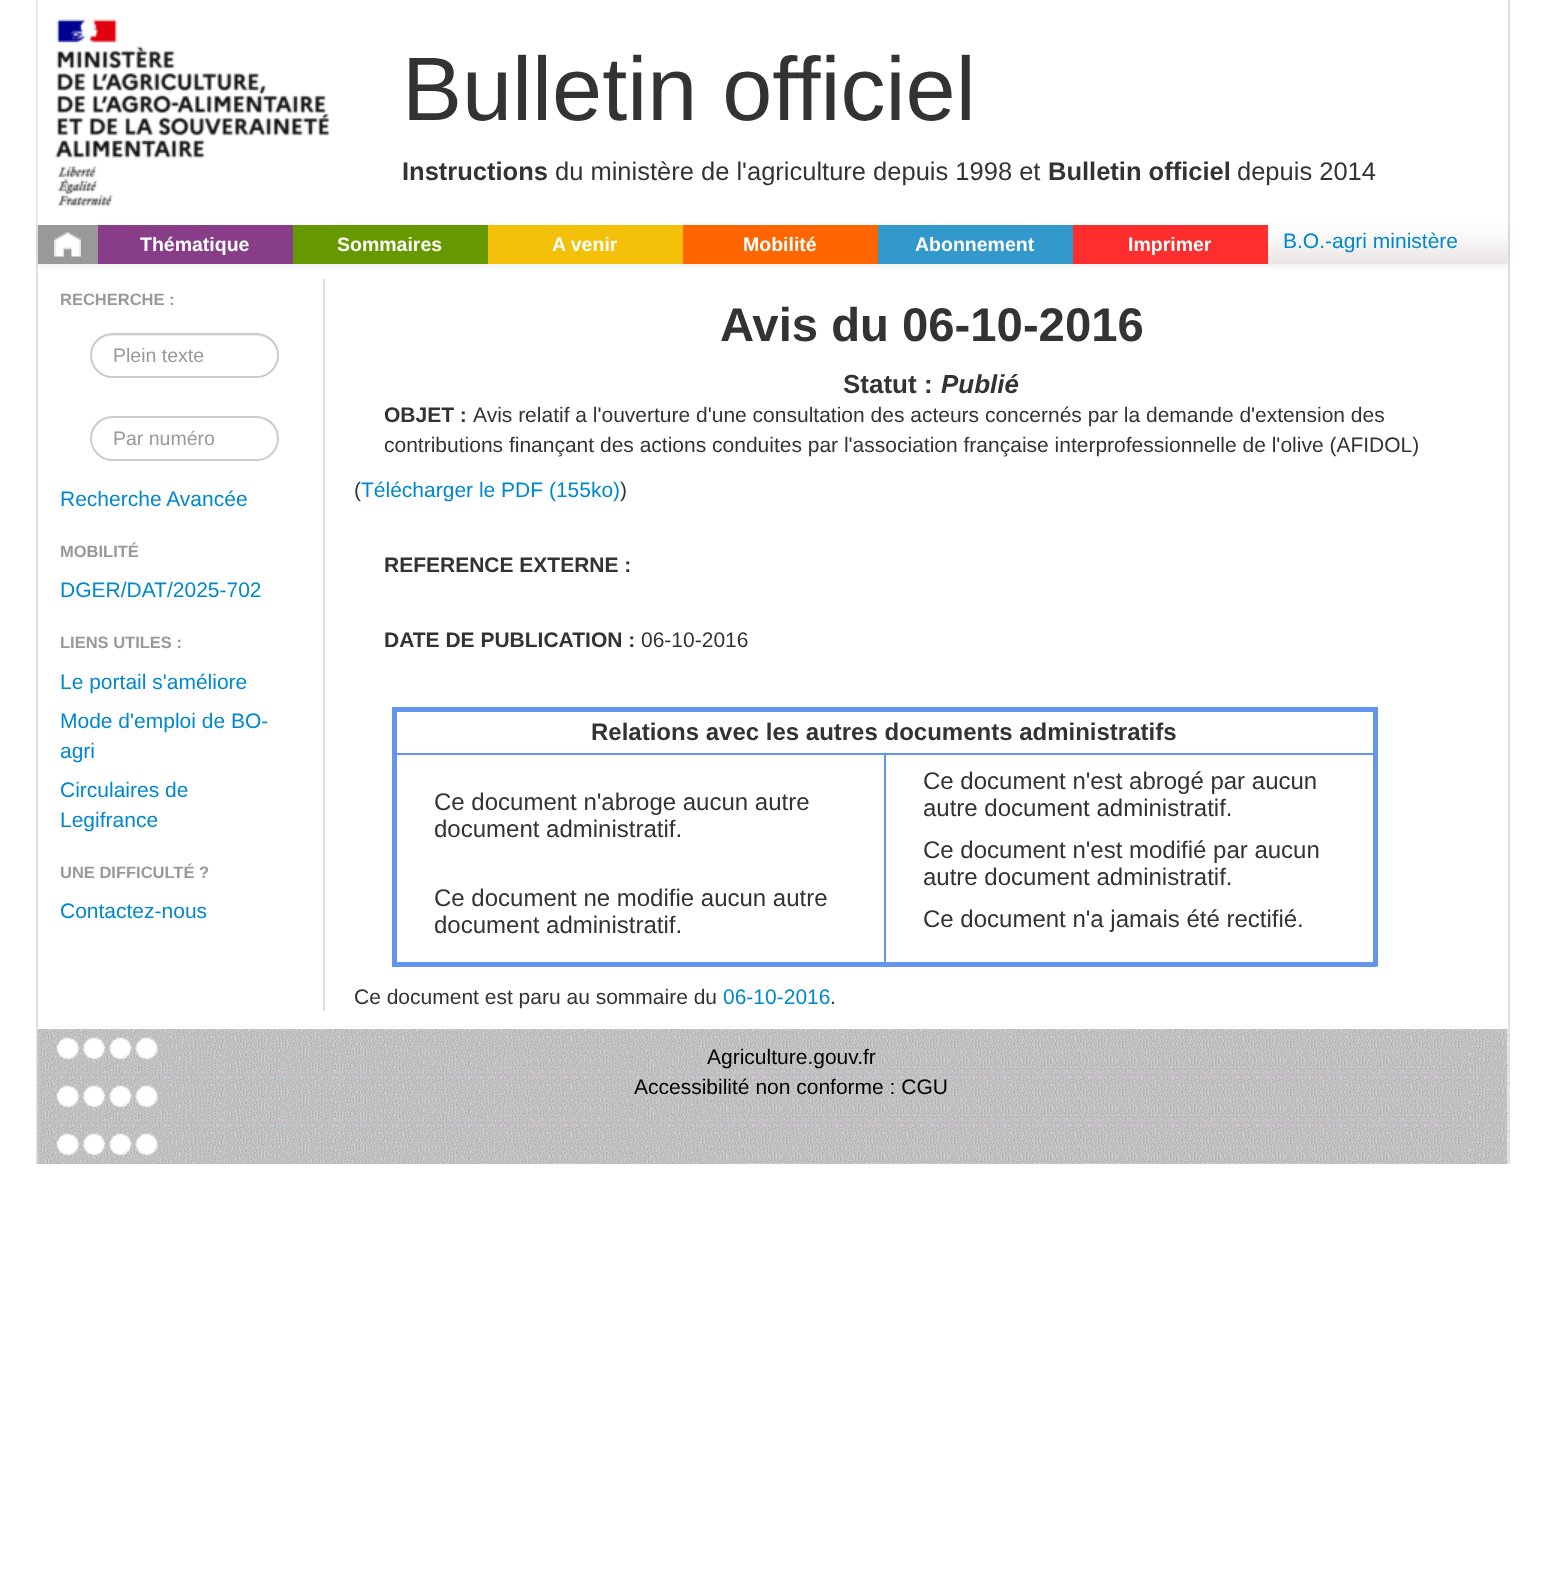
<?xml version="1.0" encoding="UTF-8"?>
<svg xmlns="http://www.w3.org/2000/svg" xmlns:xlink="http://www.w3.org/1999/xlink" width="1545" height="1569">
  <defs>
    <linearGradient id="g1" gradientUnits="userSpaceOnUse" x1="773" y1="225" x2="773" y2="264"><stop offset="0" stop-color="#ffffff" /><stop offset="1" stop-color="#eae5e5" /></linearGradient>
  </defs>
  <rect width="100%" height="100%" fill="#ffffff" />
  <rect x="1508" width="2" height="1164" fill="#e0e0e0" />
  <rect x="36" width="2" height="1164" fill="#e0e0e0" />
  <rect x="38" y="227" width="1470" height="39" fill="#000000" fill-opacity="0.07" filter="blur(3px)" />
  <image x="37" y="0" width="293" height="225" xlink:href="image1.png" />
  <rect x="1268" y="225" width="240" height="39" fill="url(#g1)" />
  <rect x="38" y="225" width="60" height="39" fill="#999999" />
  <image x="54" y="232" width="27" height="25" xlink:href="image2.png" />
  <rect x="98" y="225" width="195" height="39" fill="#873d87" />
  <rect x="293" y="225" width="195" height="39" fill="#669900" />
  <rect x="488" y="225" width="195" height="39" fill="#f3c10a" />
  <rect x="683" y="225" width="195" height="39" fill="#ff6600" />
  <rect x="878" y="225" width="195" height="39" fill="#3399cc" />
  <rect x="1073" y="225" width="195" height="39" fill="#fe2e2e" />
  <path d="M 112 336 h 144 c 12 0 22 9 22 20 c 0 -12 -9 -21 -21 -21 h -144 c -12 0 -21 9 -21 21 c 0 -11 9 -20 20 -20 z" fill="#ececec" />
  <rect x="91" y="334" width="187" height="43" rx="21.5" fill="none" stroke="#cccccc" stroke-width="2" />
  <path d="M 112 418 h 144 c 12 0 21 9 22 21 v -1 c 0 -12 -9 -21 -21 -21 h -144 c -12 0 -21 9 -21 21 v 1 c 1 -12 9 -21 20 -21 z" fill="#ececec" />
  <rect x="91" y="417" width="187" height="43" rx="21.5" fill="none" stroke="#cccccc" stroke-width="2" />
  <rect x="323" y="279" width="2" height="732" fill="#e0e0e0" />
  <rect x="392" y="707" width="985" height="5" fill="#6495ed" />
  <rect x="884" y="753" width="492" height="2" fill="#6495ed" />
  <rect x="1373" y="707" width="5" height="259" fill="#6495ed" />
  <rect x="884" y="753" width="2" height="212" fill="#6495ed" />
  <rect x="392" y="962" width="985" height="5" fill="#6495ed" />
  <rect x="393" y="753" width="492" height="2" fill="#6495ed" />
  <rect x="392" y="707" width="5" height="259" fill="#6495ed" />
  <image x="37" y="1029" width="1471" height="135" xlink:href="image3.png" />
  <text x="402" y="120" style="font-family: Liberation Sans; font-size: 90px; fill: #333333">Bulletin officiel</text>
  <text x="402" y="180" style="font-family: Liberation Sans; font-size: 25.5px; font-weight: bold; fill: #333333">Instructions</text>
  <text x="555" y="180" style="font-family: Liberation Sans; font-size: 25.5px; fill: #333333">du ministère de l'agriculture depuis 1998 et</text>
  <text x="1048" y="180" style="font-family: Liberation Sans; font-size: 25.5px; font-weight: bold; fill: #333333">Bulletin officiel</text>
  <text x="1237" y="180" style="font-family: Liberation Sans; font-size: 25.5px; fill: #333333">depuis 2014</text>
  <text x="140" y="251" style="font-family: Liberation Sans; font-size: 19.5px; font-weight: bold; fill: #ffffff">Thématique</text>
  <text x="337" y="251" style="font-family: Liberation Sans; font-size: 19.5px; font-weight: bold; fill: #ffffff">Sommaires</text>
  <text x="552" y="251" style="font-family: Liberation Sans; font-size: 19.5px; font-weight: bold; fill: #ffffff">A venir</text>
  <text x="743" y="251" style="font-family: Liberation Sans; font-size: 19.5px; font-weight: bold; fill: #ffffff">Mobilité</text>
  <text x="915" y="251" style="font-family: Liberation Sans; font-size: 19.5px; font-weight: bold; fill: #ffffff">Abonnement</text>
  <text x="1128" y="251" style="font-family: Liberation Sans; font-size: 19.5px; font-weight: bold; fill: #ffffff">Imprimer</text>
  <text x="1283" y="248" style="font-family: Liberation Sans; font-size: 21px; fill: #0088cc">B.O.-agri ministère</text>
  <text x="60" y="305" style="font-family: Liberation Sans; font-size: 16.5px; font-weight: bold; fill: #999999">RECHERCHE :</text>
  <text x="113" y="362" style="font-family: Liberation Sans; font-size: 19.5px; fill: #999999">Plein texte</text>
  <text x="113" y="445" style="font-family: Liberation Sans; font-size: 19.5px; fill: #999999">Par numéro</text>
  <text x="60" y="506" style="font-family: Liberation Sans; font-size: 21px; fill: #0088cc">Recherche Avancée</text>
  <text x="60" y="557" style="font-family: Liberation Sans; font-size: 16.5px; font-weight: bold; fill: #999999">MOBILITÉ</text>
  <text x="60" y="597" style="font-family: Liberation Sans; font-size: 21px; fill: #0088cc">DGER/DAT/2025-702</text>
  <text x="60" y="648" style="font-family: Liberation Sans; font-size: 16.5px; font-weight: bold; fill: #999999">LIENS UTILES :</text>
  <text x="60" y="689" style="font-family: Liberation Sans; font-size: 21px; fill: #0088cc">Le portail s'améliore</text>
  <text x="60" y="728" style="font-family: Liberation Sans; font-size: 21px; fill: #0088cc">Mode d'emploi de BO-</text>
  <text x="60" y="758" style="font-family: Liberation Sans; font-size: 21px; fill: #0088cc">agri</text>
  <text x="60" y="797" style="font-family: Liberation Sans; font-size: 21px; fill: #0088cc">Circulaires de</text>
  <text x="60" y="827" style="font-family: Liberation Sans; font-size: 21px; fill: #0088cc">Legifrance</text>
  <text x="60" y="878" style="font-family: Liberation Sans; font-size: 16.5px; font-weight: bold; fill: #999999">UNE DIFFICULTÉ ?</text>
  <text x="60" y="918" style="font-family: Liberation Sans; font-size: 21px; fill: #0088cc">Contactez-nous</text>
  <text x="720" y="341" style="font-family: Liberation Sans; font-size: 47.25px; font-weight: bold; fill: #333333">Avis du 06-10-2016</text>
  <text x="843" y="393" style="font-family: Liberation Sans; font-size: 26px; font-weight: bold; fill: #333333">Statut :</text>
  <text x="941" y="393" style="font-family: Liberation Sans; font-size: 26px; font-weight: bold; font-style: italic; fill: #333333">Publié</text>
  <text x="384" y="422" style="font-family: Liberation Sans; font-size: 21px; font-weight: bold; fill: #333333">OBJET :</text>
  <text x="473" y="422" style="font-family: Liberation Sans; font-size: 21px; fill: #333333">Avis relatif a l'ouverture d'une consultation des acteurs concernés par la demande d'extension des</text>
  <text x="384" y="452" style="font-family: Liberation Sans; font-size: 21px; fill: #333333">contributions finançant des actions conduites par l'association française interprofessionnelle de l'olive (AFIDOL)</text>
  <text x="354" y="497" style="font-family: Liberation Sans; font-size: 21px; fill: #333333">(</text>
  <text x="361" y="497" style="font-family: Liberation Sans; font-size: 21px; fill: #0088cc">Télécharger le PDF (155ko)</text>
  <text x="620" y="497" style="font-family: Liberation Sans; font-size: 21px; fill: #333333">)</text>
  <text x="384" y="572" style="font-family: Liberation Sans; font-size: 21px; font-weight: bold; fill: #333333">REFERENCE EXTERNE :</text>
  <text x="384" y="647" style="font-family: Liberation Sans; font-size: 21px; font-weight: bold; fill: #333333">DATE DE PUBLICATION :</text>
  <text x="641" y="647" style="font-family: Liberation Sans; font-size: 21px; fill: #333333">06-10-2016</text>
  <text x="591" y="740" style="font-family: Liberation Sans; font-size: 24px; font-weight: bold; fill: #333333">Relations avec les autres documents administratifs</text>
  <text x="434" y="810" style="font-family: Liberation Sans; font-size: 24px; fill: #333333">Ce document n'abroge aucun autre</text>
  <text x="434" y="837" style="font-family: Liberation Sans; font-size: 24px; fill: #333333">document administratif.</text>
  <text x="434" y="906" style="font-family: Liberation Sans; font-size: 24px; fill: #333333">Ce document ne modifie aucun autre</text>
  <text x="434" y="933" style="font-family: Liberation Sans; font-size: 24px; fill: #333333">document administratif.</text>
  <text x="923" y="789" style="font-family: Liberation Sans; font-size: 24px; fill: #333333">Ce document n'est abrogé par aucun</text>
  <text x="923" y="816" style="font-family: Liberation Sans; font-size: 24px; fill: #333333">autre document administratif.</text>
  <text x="923" y="858" style="font-family: Liberation Sans; font-size: 24px; fill: #333333">Ce document n'est modifié par aucun</text>
  <text x="923" y="885" style="font-family: Liberation Sans; font-size: 24px; fill: #333333">autre document administratif.</text>
  <text x="923" y="927" style="font-family: Liberation Sans; font-size: 24px; fill: #333333">Ce document n'a jamais été rectifié.</text>
  <text x="354" y="1004" style="font-family: Liberation Sans; font-size: 21px; fill: #333333">Ce document est paru au sommaire du</text>
  <text x="723" y="1004" style="font-family: Liberation Sans; font-size: 21px; fill: #0088cc">06-10-2016</text>
  <text x="830" y="1004" style="font-family: Liberation Sans; font-size: 21px; fill: #333333">.</text>
  <text x="707" y="1064" style="font-family: Liberation Sans; font-size: 21px; fill: #000000">Agriculture.gouv.fr</text>
  <text x="634" y="1094" style="font-family: Liberation Sans; font-size: 21px; fill: #000000">Accessibilité non conforme : CGU</text>
</svg>
